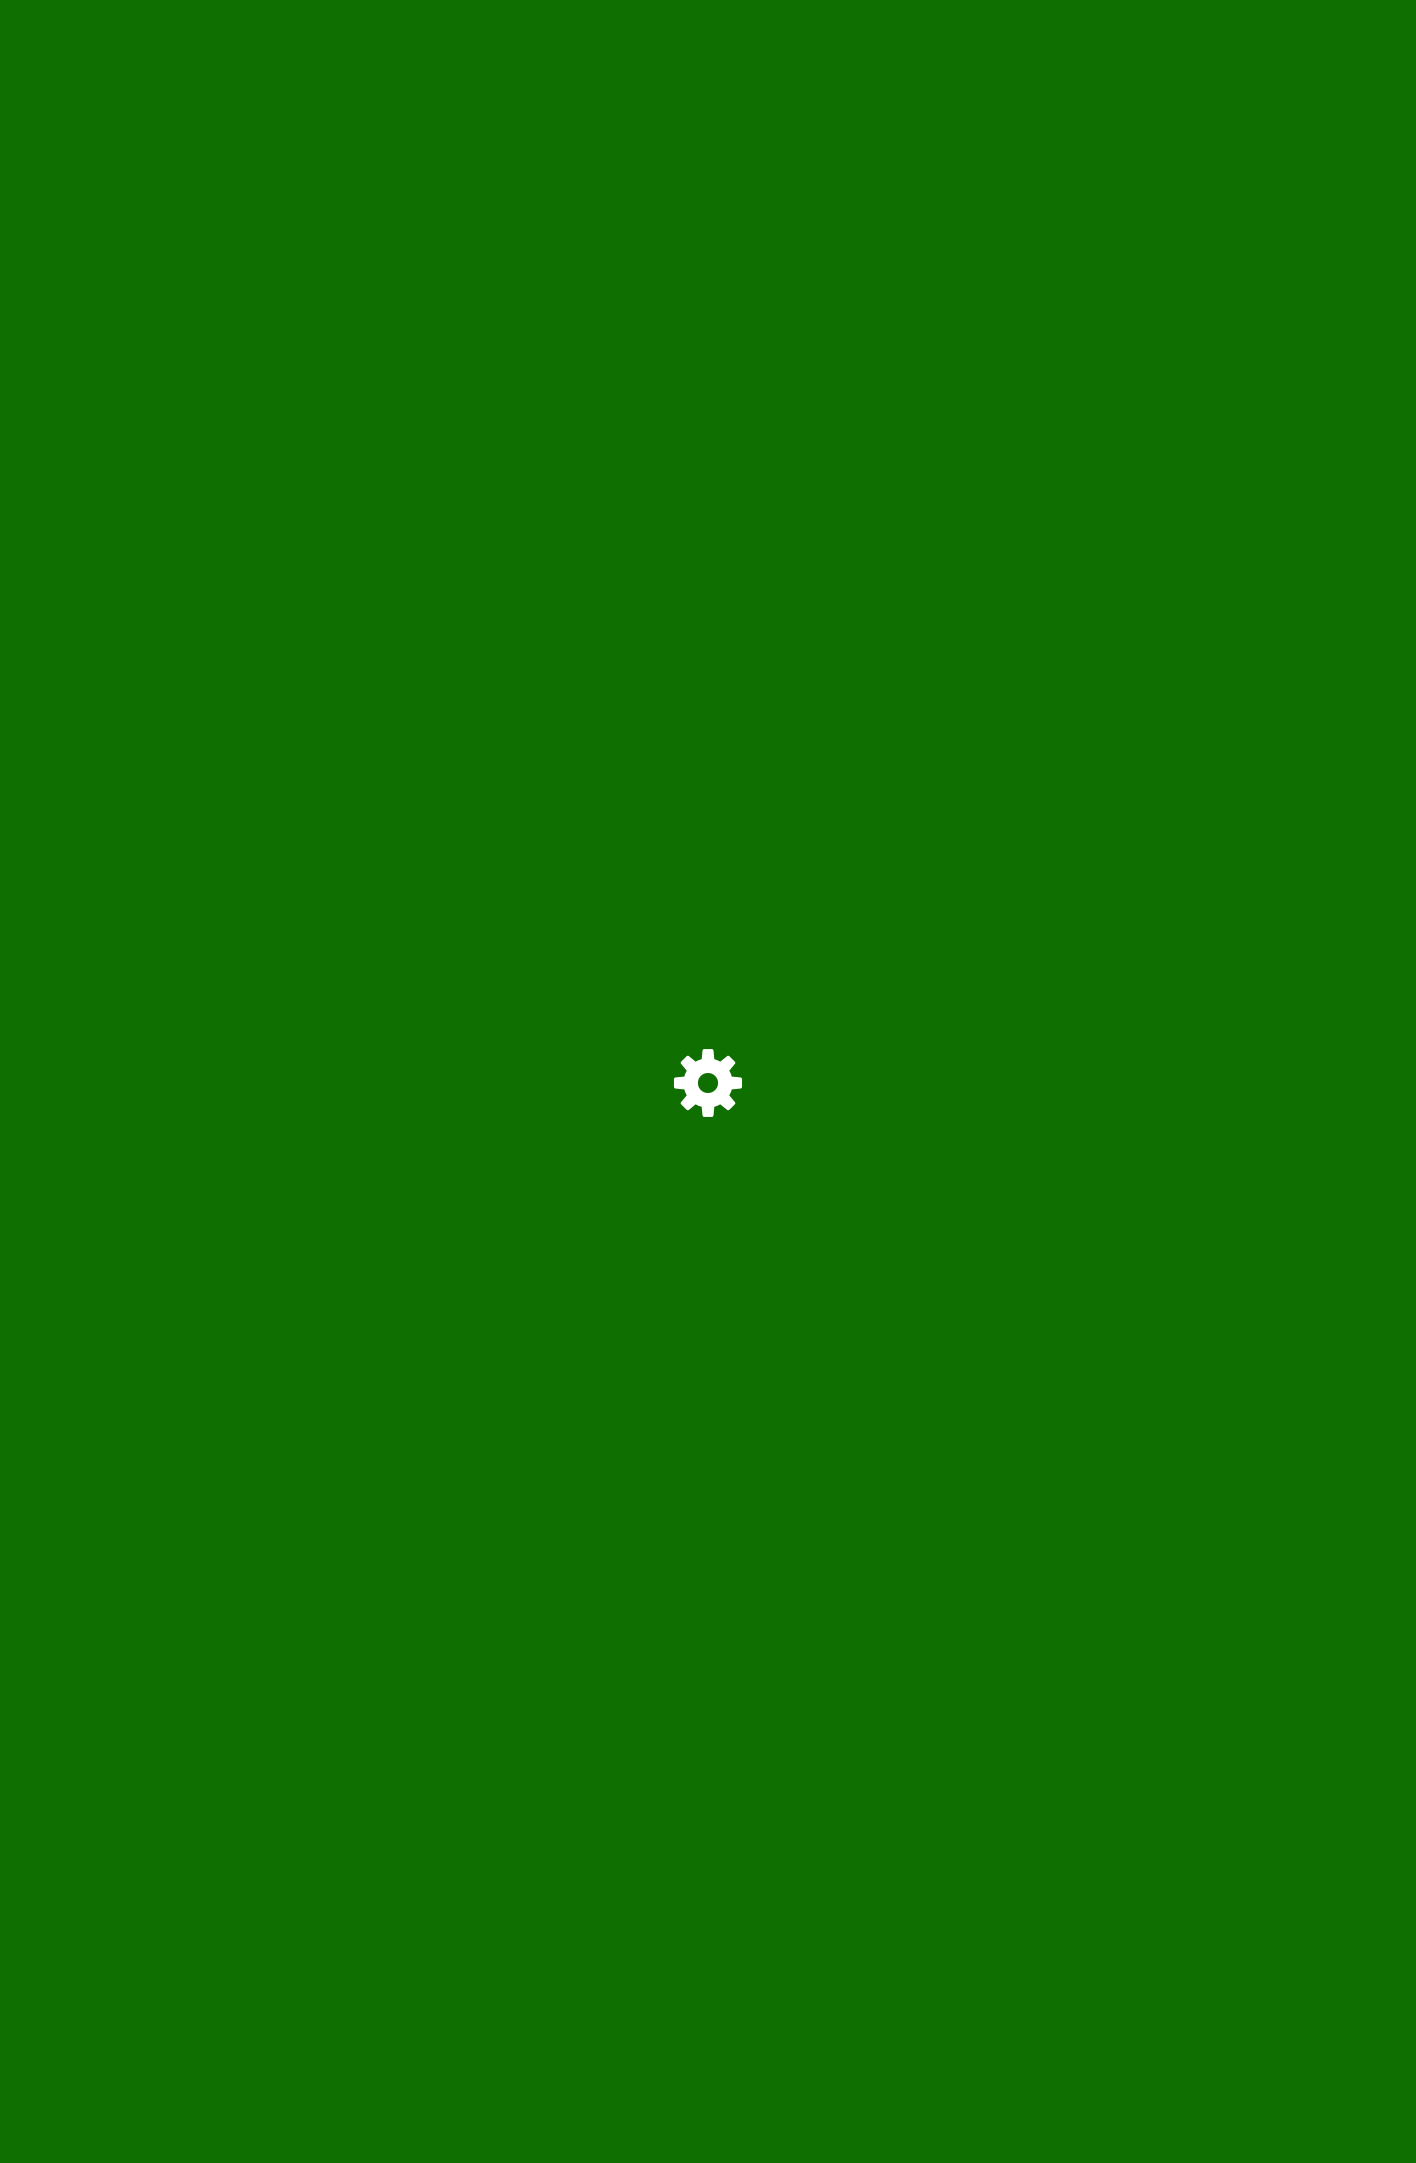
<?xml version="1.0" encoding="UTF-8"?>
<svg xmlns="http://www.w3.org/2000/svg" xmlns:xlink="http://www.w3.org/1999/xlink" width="1416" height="2163">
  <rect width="100%" height="100%" fill="#0f7001" />
  <image x="673" y="1049" width="70" height="68" xlink:href="image1.png" />
</svg>
